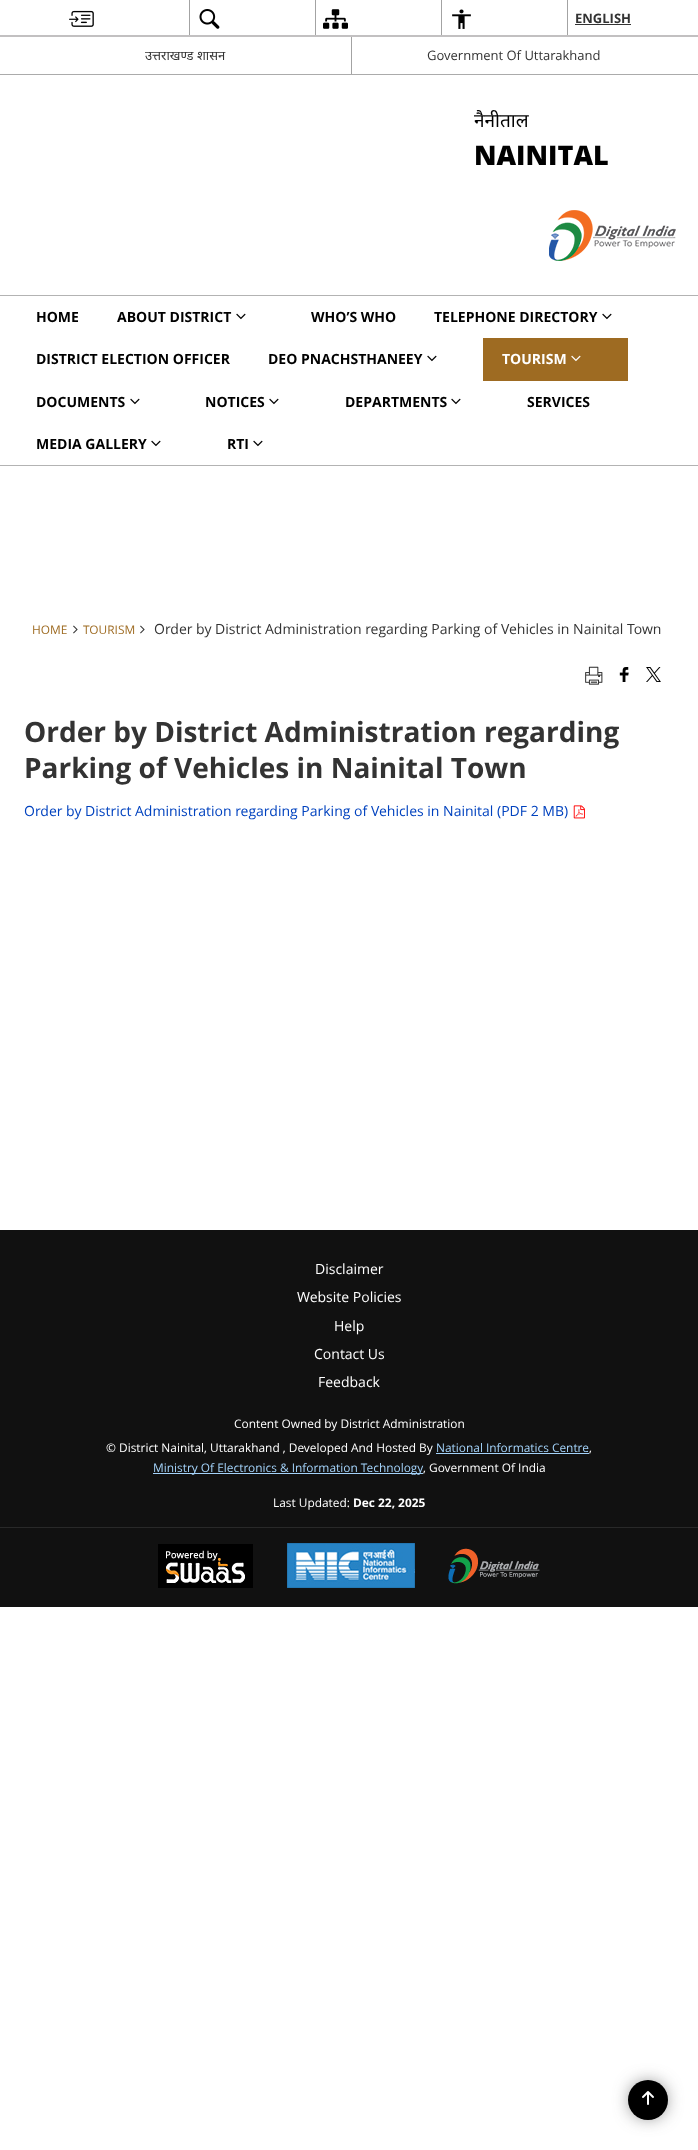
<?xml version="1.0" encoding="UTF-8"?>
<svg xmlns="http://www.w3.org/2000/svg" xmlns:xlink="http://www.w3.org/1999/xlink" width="698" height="2150">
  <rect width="100%" height="100%" fill="#ffffff" />
  <rect y="74" width="698" height="1" fill="#ababab" />
  <image x="69" y="10" width="25" height="17" xlink:href="image1.png" />
  <rect x="189" width="1" height="37" fill="#a3a3a3" />
  <image x="199" y="9" width="21" height="20" xlink:href="image2.png" />
  <rect x="315" width="1" height="37" fill="#a3a3a3" />
  <image x="323" y="9" width="25" height="20" xlink:href="image3.png" />
  <rect x="441" width="1" height="37" fill="#a3a3a3" />
  <image x="452" y="9" width="19" height="20" xlink:href="image4.png" />
  <rect x="567" width="1" height="37" fill="#a3a3a3" />
  <rect x="575" y="24" width="56" height="1" fill="#333333" />
  <rect x="351" y="37" width="1" height="37" fill="#a3a3a3" />
  <rect y="35" width="698" height="2" fill="#c2c0c1" />
  <image x="549" y="210" width="127" height="51" xlink:href="image5.png" />
  <rect y="295" width="698" height="1" fill="#b3b3b3" />
  <rect y="465" width="698" height="1" fill="#b3b3b3" />
  <image x="236" y="313" width="10" height="7" xlink:href="image6.png" />
  <image x="602" y="313" width="10" height="7" xlink:href="image6.png" />
  <image x="427" y="355" width="10" height="7" xlink:href="image6.png" />
  <rect x="483" y="338" width="145" height="43" fill="#9e6b22" />
  <image x="571" y="355" width="10" height="7" xlink:href="image7.png" />
  <image x="130" y="398" width="10" height="7" xlink:href="image6.png" />
  <image x="269" y="398" width="10" height="7" xlink:href="image6.png" />
  <image x="451" y="398" width="10" height="7" xlink:href="image6.png" />
  <image x="151" y="440" width="10" height="7" xlink:href="image6.png" />
  <image x="253" y="440" width="10" height="7" xlink:href="image6.png" />
  <image x="73" y="625" width="5" height="9" xlink:href="image8.png" />
  <image x="140" y="625" width="5" height="9" xlink:href="image8.png" />
  <image x="585" y="666" width="18" height="19" xlink:href="image9.png" />
  <image x="619" y="667" width="10" height="15" xlink:href="image10.png" />
  <image x="646" y="667" width="15" height="15" xlink:href="image11.png" />
  <image x="573" y="805" width="12" height="14" xlink:href="image12.png" />
  <rect y="1230" width="698" height="377" fill="#111111" />
  <rect x="436" y="1453" width="153" height="1" fill="#a3d2f9" />
  <rect x="153" y="1473" width="270" height="1" fill="#a3d2f9" />
  <rect y="1527" width="698" height="1" fill="#292929" />
  <image x="158" y="1544" width="95" height="44" xlink:href="image13.png" />
  <image x="287" y="1543" width="128" height="45" xlink:href="image14.png" />
  <image x="448" y="1548" width="92" height="36" xlink:href="image15.png" />
  <rect x="633" y="2085" width="30" height="30" rx="15" fill="#3c3c3c" filter="blur(9.5px)" />
  <circle cx="648" cy="2100" r="20" fill="#000000" />
  <image x="642" y="2091" width="12" height="14" xlink:href="image16.png" />
  <text x="575" y="23" style="font-family: Open Sans; font-size: 13px; font-weight: bold; fill: #333333">ENGLISH</text>
  <text x="145" y="60" style="font-family: Noto Sans; font-size: 13px; fill: #333333">उत्तराखण्ड शासन</text>
  <text x="427" y="60" style="font-family: Open Sans; font-size: 13px; fill: #333333">Government Of Uttarakhand</text>
  <text x="474" y="127" style="font-family: Noto Sans; font-size: 19px; fill: #000000">नैनीताल</text>
  <text x="474" y="165" style="font-family: Open Sans; font-size: 27px; font-weight: 800; fill: #000000">NAINITAL</text>
  <text x="36" y="322" style="font-family: Open Sans; font-size: 14px; font-weight: bold; fill: #000000">HOME</text>
  <text x="117" y="322" style="font-family: Open Sans; font-size: 14px; font-weight: bold; fill: #000000">ABOUT DISTRICT</text>
  <text x="311" y="322" style="font-family: Open Sans; font-size: 14px; font-weight: bold; fill: #000000">WHO’S WHO</text>
  <text x="434" y="322" style="font-family: Open Sans; font-size: 14px; font-weight: bold; fill: #000000">TELEPHONE DIRECTORY</text>
  <text x="36" y="364" style="font-family: Open Sans; font-size: 14px; font-weight: bold; fill: #000000">DISTRICT ELECTION OFFICER</text>
  <text x="268" y="364" style="font-family: Open Sans; font-size: 14px; font-weight: bold; fill: #000000">DEO PNACHSTHANEEY</text>
  <text x="502" y="364" style="font-family: Open Sans; font-size: 14px; font-weight: bold; fill: #ffffff">TOURISM</text>
  <text x="36" y="407" style="font-family: Open Sans; font-size: 14px; font-weight: bold; fill: #000000">DOCUMENTS</text>
  <text x="205" y="407" style="font-family: Open Sans; font-size: 14px; font-weight: bold; fill: #000000">NOTICES</text>
  <text x="345" y="407" style="font-family: Open Sans; font-size: 14px; font-weight: bold; fill: #000000">DEPARTMENTS</text>
  <text x="527" y="407" style="font-family: Open Sans; font-size: 14px; font-weight: bold; fill: #000000">SERVICES</text>
  <text x="36" y="449" style="font-family: Open Sans; font-size: 14px; font-weight: bold; fill: #000000">MEDIA GALLERY</text>
  <text x="227" y="449" style="font-family: Open Sans; font-size: 14px; font-weight: bold; fill: #000000">RTI</text>
  <text x="32" y="634" style="font-family: Open Sans; font-size: 11.9px; fill: #9e6b22">HOME</text>
  <text x="83" y="634" style="font-family: Open Sans; font-size: 11.9px; fill: #9e6b22">TOURISM</text>
  <text x="154" y="634" style="font-family: Open Sans; font-size: 14px; fill: #333333">Order by District Administration regarding Parking of Vehicles in Nainital Town</text>
  <text x="24" y="742" style="font-family: Open Sans; font-size: 28px; font-weight: bold; fill: #333333">Order by District Administration regarding</text>
  <text x="24" y="778" style="font-family: Open Sans; font-size: 28px; font-weight: bold; fill: #333333">Parking of Vehicles in Nainital Town</text>
  <text x="24" y="816" style="font-family: Open Sans; font-size: 14px; fill: #0042bf">Order by District Administration regarding Parking of Vehicles in Nainital (PDF 2 MB)</text>
  <text x="315" y="1274" style="font-family: Open Sans; font-size: 14px; fill: #ffffff">Disclaimer</text>
  <text x="297" y="1302" style="font-family: Open Sans; font-size: 14px; fill: #ffffff">Website Policies</text>
  <text x="334" y="1331" style="font-family: Open Sans; font-size: 14px; fill: #ffffff">Help</text>
  <text x="314" y="1359" style="font-family: Open Sans; font-size: 14px; fill: #ffffff">Contact Us</text>
  <text x="318" y="1387" style="font-family: Open Sans; font-size: 14px; fill: #ffffff">Feedback</text>
  <text x="234" y="1428" style="font-family: Open Sans; font-size: 11.9px; fill: #ffffff">Content Owned by District Administration</text>
  <text x="106" y="1452" style="font-family: Open Sans; font-size: 11.9px; fill: #ffffff">© District Nainital, Uttarakhand , Developed And Hosted By</text>
  <text x="436" y="1452" style="font-family: Open Sans; font-size: 11.9px; fill: #a3d2f9">National Informatics Centre</text>
  <text x="589" y="1452" style="font-family: Open Sans; font-size: 11.9px; fill: #ffffff">,</text>
  <text x="153" y="1472" style="font-family: Open Sans; font-size: 11.9px; fill: #a3d2f9">Ministry Of Electronics &amp; Information Technology</text>
  <text x="423" y="1472" style="font-family: Open Sans; font-size: 11.9px; fill: #ffffff">, Government Of India</text>
  <text x="273" y="1507" style="font-family: Open Sans; font-size: 11.9px; fill: #ffffff">Last Updated:</text>
  <text x="353" y="1507" style="font-family: Open Sans; font-size: 11.9px; font-weight: bold; fill: #ffffff">Dec 22, 2025</text>
</svg>
